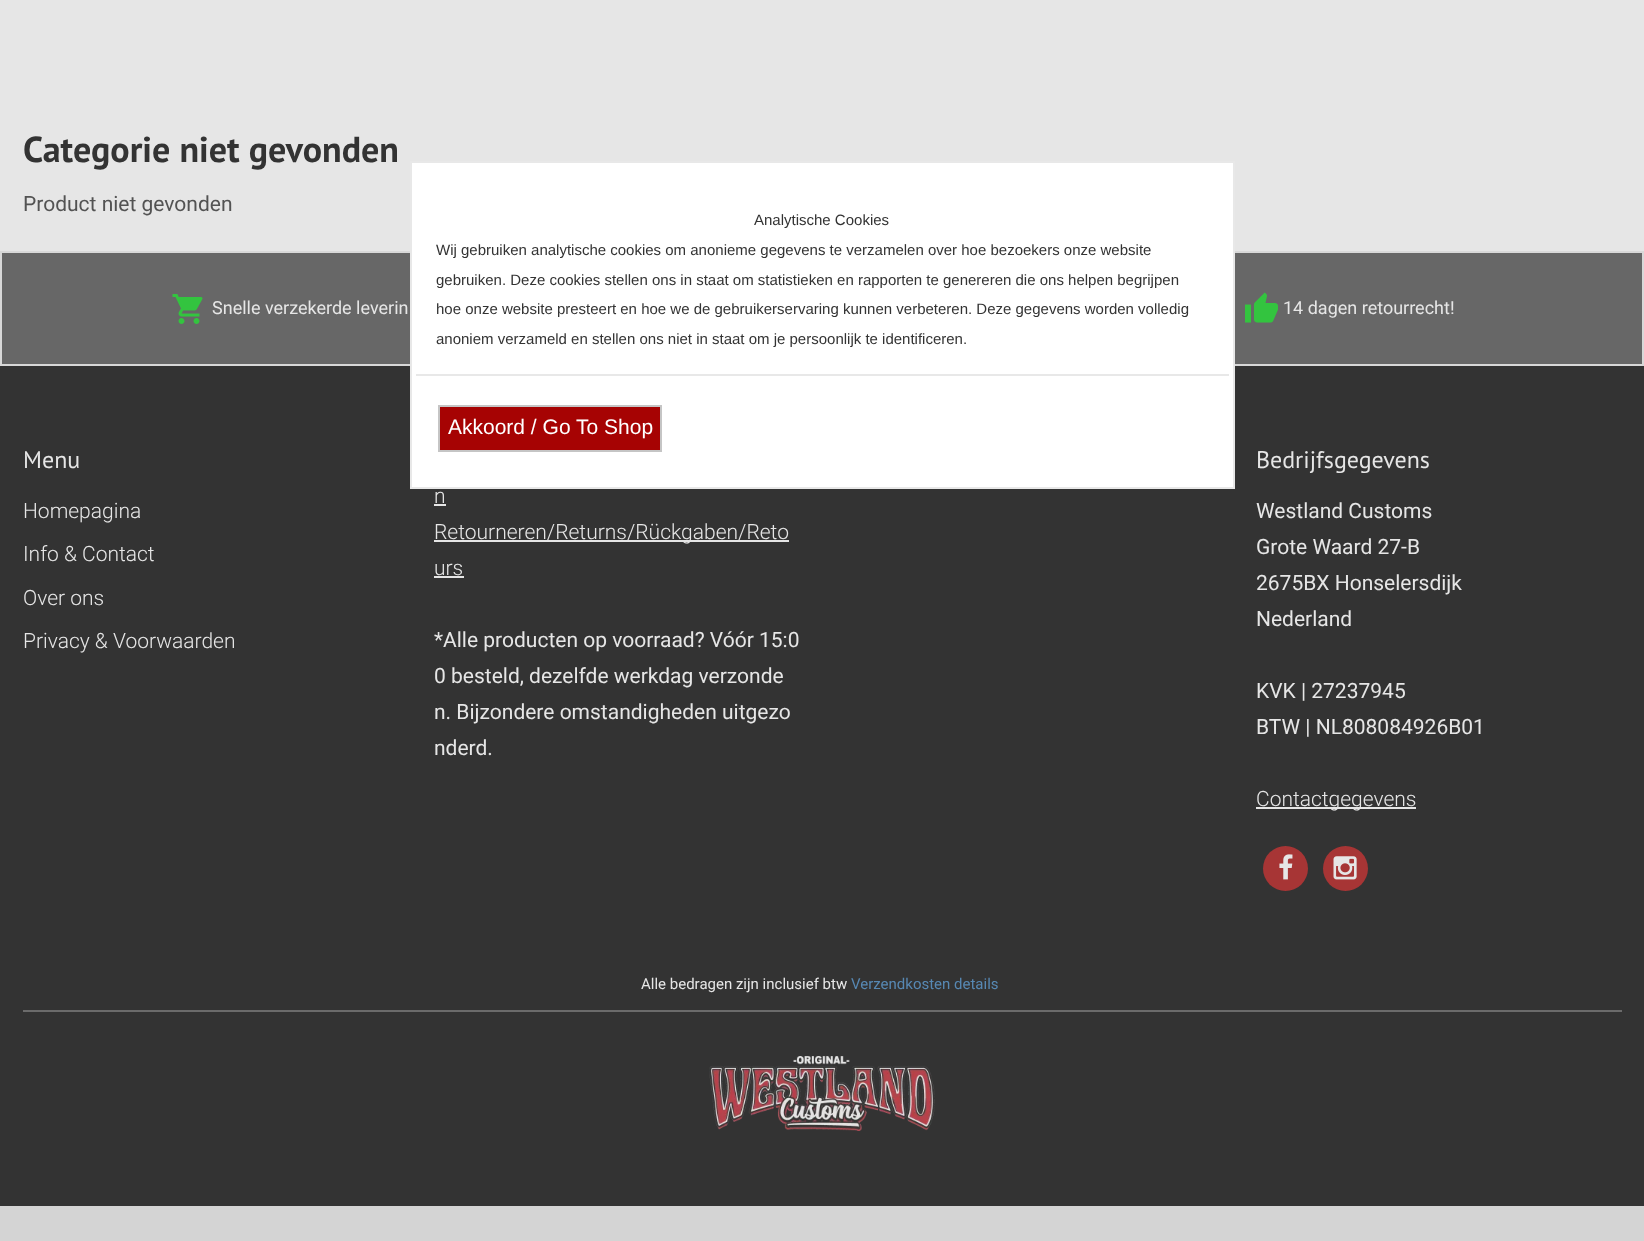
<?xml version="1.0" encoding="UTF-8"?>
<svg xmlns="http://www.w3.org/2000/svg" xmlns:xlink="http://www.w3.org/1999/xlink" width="1644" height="1241">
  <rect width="100%" height="100%" fill="#e6e6e6" />
  <rect x="1" y="252" width="1642" height="113" fill="#676767" stroke="#d8d8d8" stroke-width="2" />
  <rect y="366" width="1644" height="840" fill="#333333" />
  <rect x="411" y="162" width="823" height="326" fill="#ffffff" stroke="#e8e8e8" stroke-width="2" />
  <rect x="416" y="374" width="813" height="2" fill="#e8e8e8" />
  <rect x="439" y="406" width="222" height="45" fill="#a60303" stroke="#c5c5c5" stroke-width="2" />
  <image x="172" y="294" width="31" height="30" xlink:href="image1.png" />
  <image x="1245" y="292" width="33" height="31" xlink:href="image2.png" />
  <rect x="434" y="504" width="12" height="2" fill="#e6e6e6" />
  <rect x="434" y="540" width="355" height="2" fill="#e6e6e6" />
  <rect x="434" y="576" width="30" height="2" fill="#e6e6e6" />
  <rect x="1256" y="807" width="160" height="2" fill="#e6e6e6" />
  <circle cx="1285.5" cy="868.5" r="22.5" fill="#a73535" />
  <image x="1279" y="854" width="14" height="26" xlink:href="image3.png" />
  <circle cx="1345.5" cy="868.5" r="22.5" fill="#a73535" />
  <image x="1333" y="856" width="24" height="24" xlink:href="image4.png" />
  <rect x="23" y="1010" width="1599" height="2" fill="#6b6b6b" />
  <image x="709" y="1056" width="226" height="75" xlink:href="image5.png" />
  <rect y="1206" width="1644" height="35" fill="#d4d4d4" />
  <text x="23" y="162" style="font-family: PT Sans; font-size: 36px; font-weight: bold; fill: #333333">Categorie niet gevonden</text>
  <text x="23" y="211" style="font-family: Roboto; font-size: 21px; fill: #535353">Product niet gevonden</text>
  <text x="754" y="225" style="font-family: Liberation Sans; font-size: 15px; fill: #333333">Analytische Cookies</text>
  <text x="436" y="255" style="font-family: Liberation Sans; font-size: 15px; fill: #333333">Wij gebruiken analytische cookies om anonieme gegevens te verzamelen over hoe bezoekers onze website</text>
  <text x="436" y="285" style="font-family: Liberation Sans; font-size: 15px; fill: #333333">gebruiken. Deze cookies stellen ons in staat om statistieken en rapporten te genereren die ons helpen begrijpen</text>
  <text x="436" y="314" style="font-family: Liberation Sans; font-size: 15px; fill: #333333">hoe onze website presteert en hoe we de gebruikerservaring kunnen verbeteren. Deze gegevens worden volledig</text>
  <text x="436" y="344" style="font-family: Liberation Sans; font-size: 15px; fill: #333333">anoniem verzameld en stellen ons niet in staat om je persoonlijk te identificeren.</text>
  <text x="448" y="434" style="font-family: Liberation Sans; font-size: 21px; fill: #ffffff">Akkoord / Go To Shop</text>
  <text x="212" y="314" style="font-family: Roboto; font-size: 18px; fill: #e6e6e6">Snelle verzekerde leverin</text>
  <text x="1283" y="314" style="font-family: Roboto; font-size: 18px; fill: #e6e6e6">14 dagen retourrecht!</text>
  <text x="23" y="468" style="font-family: PT Sans; font-size: 24px; fill: #e6e6e6">Menu</text>
  <text x="23" y="518" style="font-family: Roboto; font-size: 21px; font-weight: 300; fill: #e6e6e6">Homepagina</text>
  <text x="23" y="561" style="font-family: Roboto; font-size: 21px; font-weight: 300; fill: #e6e6e6">Info &amp; Contact</text>
  <text x="23" y="605" style="font-family: Roboto; font-size: 21px; font-weight: 300; fill: #e6e6e6">Over ons</text>
  <text x="23" y="648" style="font-family: Roboto; font-size: 21px; font-weight: 300; fill: #e6e6e6">Privacy &amp; Voorwaarden</text>
  <text x="434" y="503" style="font-family: Roboto; font-size: 21px; font-weight: 300; fill: #e6e6e6">n</text>
  <text x="434" y="539" style="font-family: Roboto; font-size: 21px; font-weight: 300; fill: #e6e6e6">Retourneren/Returns/Rückgaben/Reto</text>
  <text x="434" y="575" style="font-family: Roboto; font-size: 21px; font-weight: 300; fill: #e6e6e6">urs</text>
  <text x="434" y="647" style="font-family: Roboto; font-size: 21px; fill: #e6e6e6">*Alle producten op voorraad? Vóór 15:0</text>
  <text x="434" y="683" style="font-family: Roboto; font-size: 21px; fill: #e6e6e6">0 besteld, dezelfde werkdag verzonde</text>
  <text x="434" y="719" style="font-family: Roboto; font-size: 21px; fill: #e6e6e6">n. Bijzondere omstandigheden uitgezo</text>
  <text x="434" y="755" style="font-family: Roboto; font-size: 21px; fill: #e6e6e6">nderd.</text>
  <text x="1256" y="468" style="font-family: PT Sans; font-size: 24px; fill: #e6e6e6">Bedrijfsgegevens</text>
  <text x="1256" y="518" style="font-family: Roboto; font-size: 21px; fill: #e6e6e6">Westland Customs</text>
  <text x="1256" y="554" style="font-family: Roboto; font-size: 21px; fill: #e6e6e6">Grote Waard 27-B</text>
  <text x="1256" y="590" style="font-family: Roboto; font-size: 21px; fill: #e6e6e6">2675BX Honselersdijk</text>
  <text x="1256" y="626" style="font-family: Roboto; font-size: 21px; fill: #e6e6e6">Nederland</text>
  <text x="1256" y="698" style="font-family: Roboto; font-size: 21px; fill: #e6e6e6">KVK | 27237945</text>
  <text x="1256" y="734" style="font-family: Roboto; font-size: 21px; fill: #e6e6e6">BTW | NL808084926B01</text>
  <text x="1256" y="806" style="font-family: Roboto; font-size: 21px; font-weight: 300; fill: #e6e6e6">Contactgegevens</text>
  <text x="641" y="989" style="font-family: Roboto; font-size: 15px; fill: #e6e6e6">Alle bedragen zijn inclusief btw</text>
  <text x="851" y="989" style="font-family: Roboto; font-size: 15px; fill: #5788b3">Verzendkosten details</text>
</svg>
